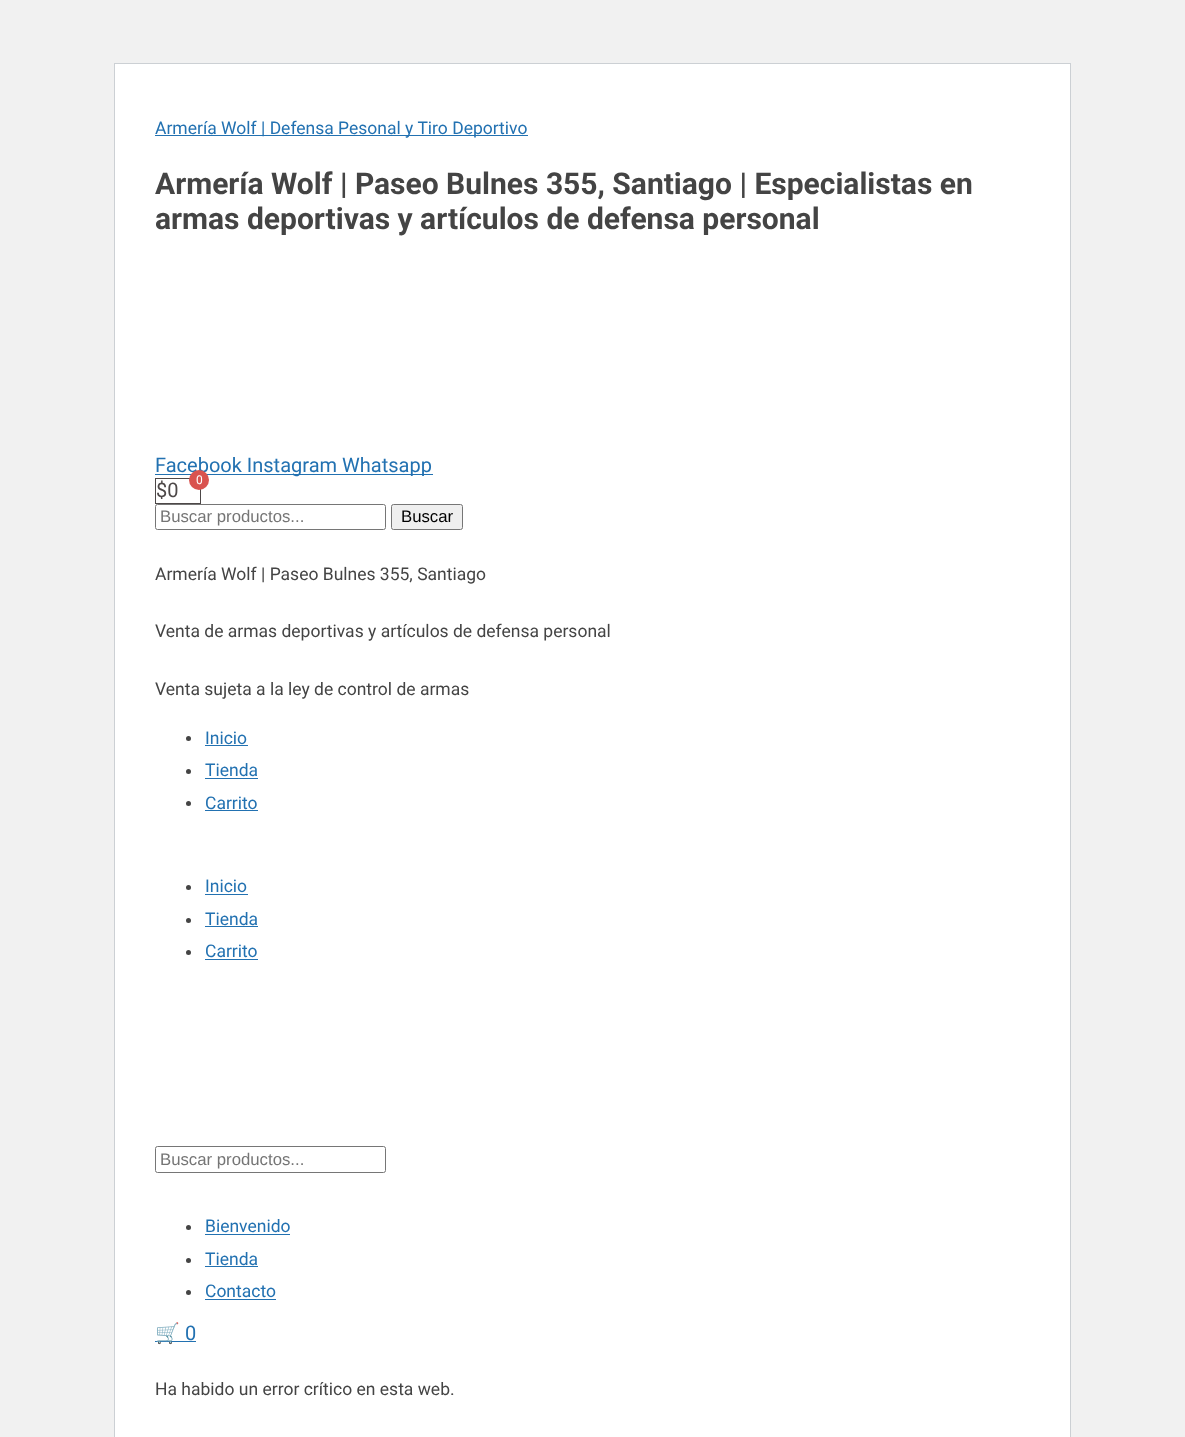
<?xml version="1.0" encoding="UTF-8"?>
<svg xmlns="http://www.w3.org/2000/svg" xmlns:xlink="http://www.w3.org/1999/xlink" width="1185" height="1437">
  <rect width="100%" height="100%" fill="#f1f1f1" />
  <rect x="114.5" y="63.5" width="956" height="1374" fill="#ffffff" stroke="#ccd0d4" />
  <rect x="155" y="135" width="373" height="1" fill="#2271b1" />
  <rect x="155" y="474" width="278" height="1" fill="#2271b1" />
  <rect x="155.5" y="478.5" width="45" height="25" fill="none" stroke="#4d4848" />
  <rect x="155.5" y="504.5" width="230" height="25" rx="2" fill="none" stroke="#767676" />
  <rect x="391.5" y="504.5" width="71" height="25" rx="2" fill="#efefef" stroke="#767676" />
  <circle cx="188.5" cy="738.5" r="2.5" fill="#444444" />
  <rect x="205" y="745" width="43" height="1" fill="#2271b1" />
  <circle cx="188.5" cy="771.5" r="2.5" fill="#444444" />
  <rect x="205" y="778" width="53" height="1" fill="#2271b1" />
  <circle cx="188.5" cy="803.5" r="2.5" fill="#444444" />
  <rect x="205" y="810" width="53" height="1" fill="#2271b1" />
  <circle cx="188.5" cy="887.5" r="2.5" fill="#444444" />
  <rect x="205" y="894" width="43" height="1" fill="#2271b1" />
  <circle cx="188.5" cy="920.5" r="2.5" fill="#444444" />
  <rect x="205" y="926" width="53" height="1" fill="#2271b1" />
  <circle cx="188.5" cy="952.5" r="2.5" fill="#444444" />
  <rect x="205" y="959" width="53" height="1" fill="#2271b1" />
  <rect x="155.5" y="1146.5" width="230" height="26" rx="2" fill="none" stroke="#767676" />
  <circle cx="188.5" cy="1227.5" r="2.5" fill="#444444" />
  <rect x="205" y="1234" width="85" height="1" fill="#2271b1" />
  <circle cx="188.5" cy="1260.5" r="2.5" fill="#444444" />
  <rect x="205" y="1266" width="53" height="1" fill="#2271b1" />
  <circle cx="188.5" cy="1292.5" r="2.5" fill="#444444" />
  <rect x="205" y="1299" width="71" height="1" fill="#2271b1" />
  <rect x="155" y="1341" width="41" height="1" fill="#2271b1" />
  <text x="155" y="134" style="font-family: Roboto; font-size: 17.5px; fill: #2271b1">Armería Wolf | Defensa Pesonal y Tiro Deportivo</text>
  <text x="155" y="194" style="font-family: Roboto; font-size: 30px; font-weight: bold; fill: #444444">Armería Wolf | Paseo Bulnes 355, Santiago | Especialistas en</text>
  <text x="155" y="229" style="font-family: Roboto; font-size: 30px; font-weight: bold; fill: #444444">armas deportivas y artículos de defensa personal</text>
  <text x="155" y="472" style="font-family: Roboto; font-size: 20px; fill: #2271b1">Facebook Instagram Whatsapp</text>
  <text x="156" y="497" style="font-family: Roboto; font-size: 20px; fill: #4d4848">$0</text>
  <circle cx="199" cy="480" r="10" fill="#d9534f" />
  <text x="196" y="484" style="font-family: Roboto; font-size: 12px; fill: #ffffff">0</text>
  <text x="160" y="522" style="font-family: Liberation Sans; font-size: 16.75px; fill: #757575">Buscar productos...</text>
  <text x="401" y="522" style="font-family: Liberation Sans; font-size: 16.75px; fill: #000000">Buscar</text>
  <text x="155" y="580" style="font-family: Roboto; font-size: 17.5px; fill: #444444">Armería Wolf | Paseo Bulnes 355, Santiago</text>
  <text x="155" y="637" style="font-family: Roboto; font-size: 17.5px; fill: #444444">Venta de armas deportivas y artículos de defensa personal</text>
  <text x="155" y="695" style="font-family: Roboto; font-size: 17.5px; fill: #444444">Venta sujeta a la ley de control de armas</text>
  <text x="205" y="744" style="font-family: Roboto; font-size: 17.5px; fill: #2271b1">Inicio</text>
  <text x="205" y="776" style="font-family: Roboto; font-size: 17.5px; fill: #2271b1">Tienda</text>
  <text x="205" y="809" style="font-family: Roboto; font-size: 17.5px; fill: #2271b1">Carrito</text>
  <text x="205" y="892" style="font-family: Roboto; font-size: 17.5px; fill: #2271b1">Inicio</text>
  <text x="205" y="925" style="font-family: Roboto; font-size: 17.5px; fill: #2271b1">Tienda</text>
  <text x="205" y="957" style="font-family: Roboto; font-size: 17.5px; fill: #2271b1">Carrito</text>
  <text x="160" y="1165" style="font-family: Liberation Sans; font-size: 16.75px; fill: #757575">Buscar productos...</text>
  <text x="205" y="1232" style="font-family: Roboto; font-size: 17.5px; fill: #2271b1">Bienvenido</text>
  <text x="205" y="1265" style="font-family: Roboto; font-size: 17.5px; fill: #2271b1">Tienda</text>
  <text x="205" y="1297" style="font-family: Roboto; font-size: 17.5px; fill: #2271b1">Contacto</text>
  <text x="155" y="1340" style="font-family: Noto Color Emoji; font-size: 20px; fill: #2271b1">🛒</text>
  <text x="185" y="1340" style="font-family: Roboto; font-size: 20px; fill: #2271b1">0</text>
  <text x="155" y="1395" style="font-family: Roboto; font-size: 17.5px; fill: #444444">Ha habido un error crítico en esta web.</text>
</svg>
